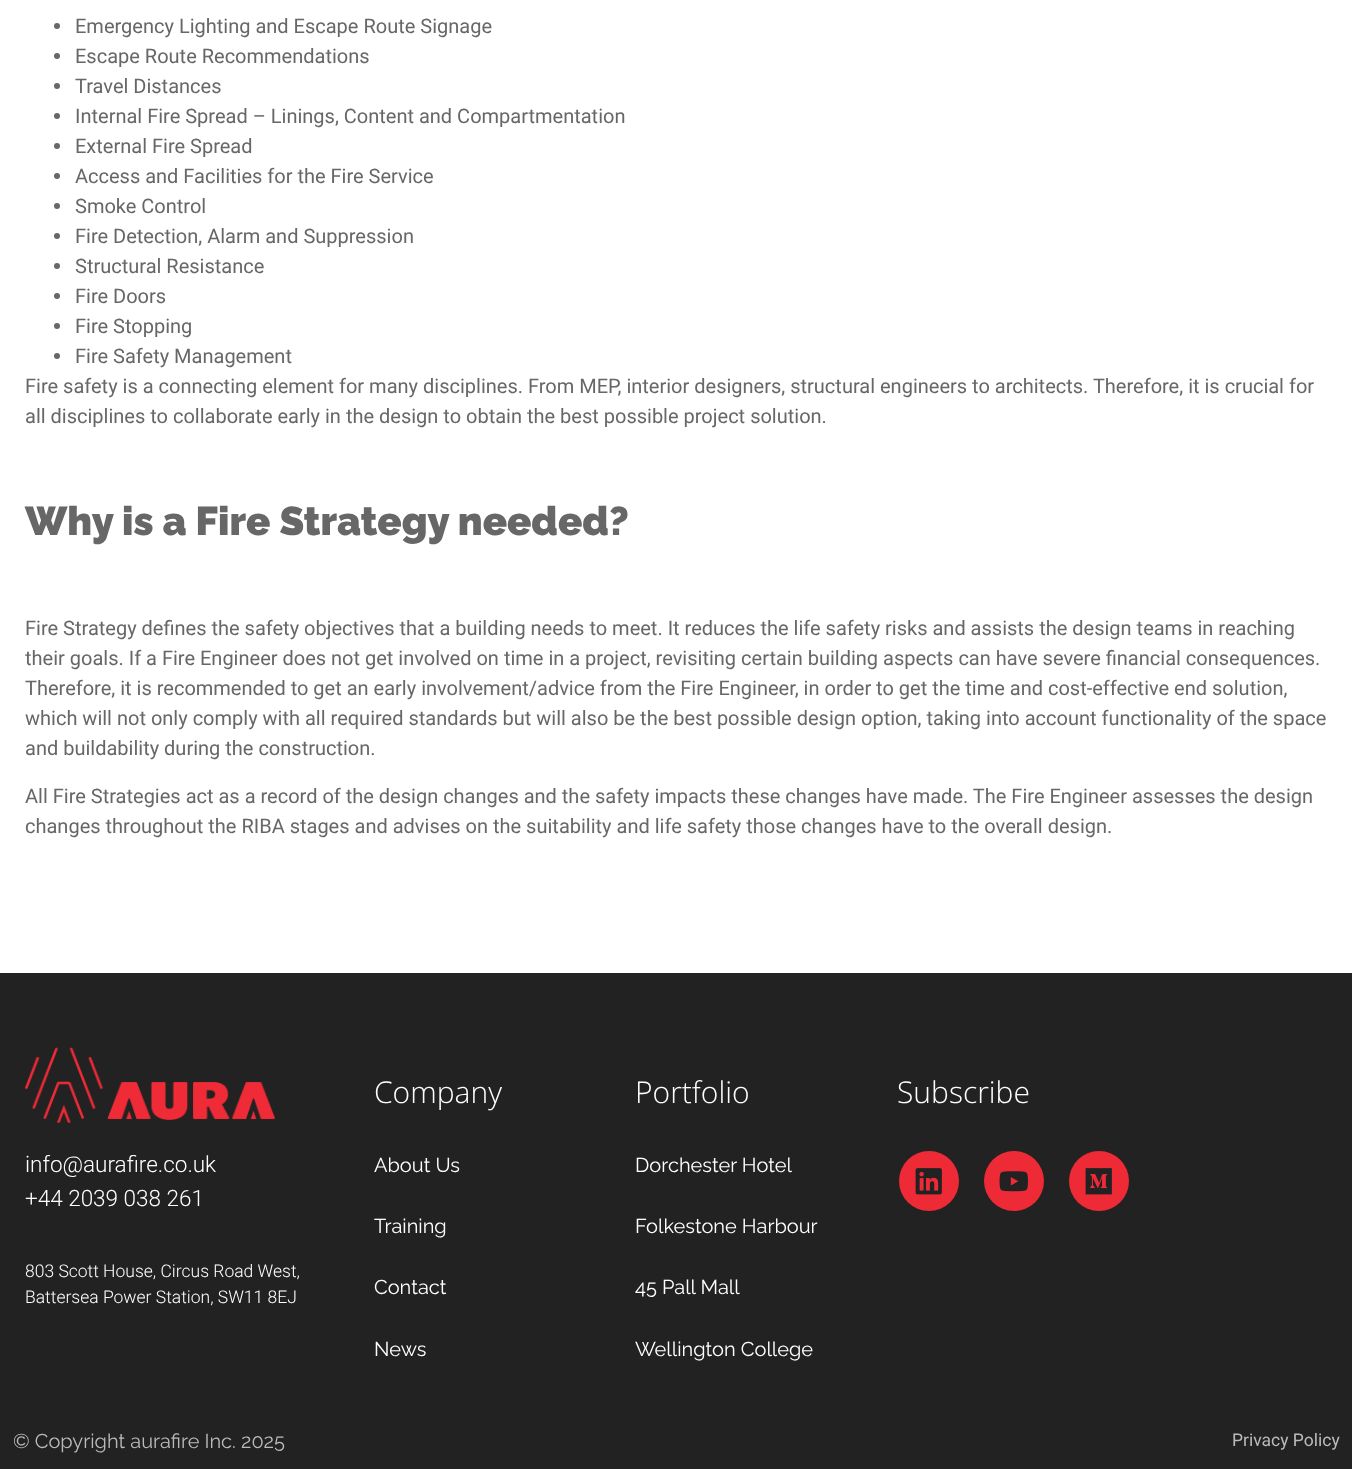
<?xml version="1.0" encoding="UTF-8"?>
<svg xmlns="http://www.w3.org/2000/svg" xmlns:xlink="http://www.w3.org/1999/xlink" width="1352" height="1469">
  <rect width="100%" height="100%" fill="#ffffff" />
  <circle cx="57" cy="26" r="3" fill="#676767" />
  <circle cx="57" cy="56" r="3" fill="#676767" />
  <circle cx="57" cy="86" r="3" fill="#676767" />
  <circle cx="57" cy="116" r="3" fill="#676767" />
  <circle cx="57" cy="146" r="3" fill="#676767" />
  <circle cx="57" cy="176" r="3" fill="#676767" />
  <circle cx="57" cy="206" r="3" fill="#676767" />
  <circle cx="57" cy="236" r="3" fill="#676767" />
  <circle cx="57" cy="266" r="3" fill="#676767" />
  <circle cx="57" cy="296" r="3" fill="#676767" />
  <circle cx="57" cy="326" r="3" fill="#676767" />
  <circle cx="57" cy="356" r="3" fill="#676767" />
  <rect y="973" width="1352" height="496" fill="#222222" />
  <image x="25" y="1047" width="250" height="76" xlink:href="image1.png" />
  <circle cx="929" cy="1181" r="30" fill="#ee2a37" />
  <image x="915" y="1168" width="27" height="27" xlink:href="image2.png" />
  <circle cx="1014" cy="1181" r="30" fill="#ee2a37" />
  <image x="999" y="1171" width="29" height="21" xlink:href="image3.png" />
  <circle cx="1099" cy="1181" r="30" fill="#ee2a37" />
  <image x="1085" y="1168" width="27" height="27" xlink:href="image4.png" />
  <text x="75" y="33" style="font-family: Roboto; font-size: 20px; fill: #676767">Emergency Lighting and Escape Route Signage</text>
  <text x="75" y="63" style="font-family: Roboto; font-size: 20px; fill: #676767">Escape Route Recommendations</text>
  <text x="75" y="93" style="font-family: Roboto; font-size: 20px; fill: #676767">Travel Distances</text>
  <text x="75" y="123" style="font-family: Roboto; font-size: 20px; fill: #676767">Internal Fire Spread – Linings, Content and Compartmentation</text>
  <text x="75" y="153" style="font-family: Roboto; font-size: 20px; fill: #676767">External Fire Spread</text>
  <text x="75" y="183" style="font-family: Roboto; font-size: 20px; fill: #676767">Access and Facilities for the Fire Service</text>
  <text x="75" y="213" style="font-family: Roboto; font-size: 20px; fill: #676767">Smoke Control</text>
  <text x="75" y="243" style="font-family: Roboto; font-size: 20px; fill: #676767">Fire Detection, Alarm and Suppression</text>
  <text x="75" y="273" style="font-family: Roboto; font-size: 20px; fill: #676767">Structural Resistance</text>
  <text x="75" y="303" style="font-family: Roboto; font-size: 20px; fill: #676767">Fire Doors</text>
  <text x="75" y="333" style="font-family: Roboto; font-size: 20px; fill: #676767">Fire Stopping</text>
  <text x="75" y="363" style="font-family: Roboto; font-size: 20px; fill: #676767">Fire Safety Management</text>
  <text x="25" y="393" style="font-family: Roboto; font-size: 20px; fill: #676767">Fire safety is a connecting element for many disciplines. From MEP, interior designers, structural engineers to architects. Therefore, it is crucial for</text>
  <text x="25" y="423" style="font-family: Roboto; font-size: 20px; fill: #676767">all disciplines to collaborate early in the design to obtain the best possible project solution.</text>
  <text x="25" y="535" style="font-family: Raleway; font-size: 40px; font-weight: 900; fill: #676767">Why is a Fire Strategy needed?</text>
  <text x="25" y="635" style="font-family: Roboto; font-size: 20px; fill: #676767">Fire Strategy defines the safety objectives that a building needs to meet. It reduces the life safety risks and assists the design teams in reaching</text>
  <text x="25" y="665" style="font-family: Roboto; font-size: 20px; fill: #676767">their goals. If a Fire Engineer does not get involved on time in a project, revisiting certain building aspects can have severe financial consequences.</text>
  <text x="25" y="695" style="font-family: Roboto; font-size: 20px; fill: #676767">Therefore, it is recommended to get an early involvement/advice from the Fire Engineer, in order to get the time and cost-effective end solution,</text>
  <text x="25" y="725" style="font-family: Roboto; font-size: 20px; fill: #676767">which will not only comply with all required standards but will also be the best possible design option, taking into account functionality of the space</text>
  <text x="25" y="755" style="font-family: Roboto; font-size: 20px; fill: #676767">and buildability during the construction.</text>
  <text x="25" y="803" style="font-family: Roboto; font-size: 20px; fill: #676767">All Fire Strategies act as a record of the design changes and the safety impacts these changes have made. The Fire Engineer assesses the design</text>
  <text x="25" y="833" style="font-family: Roboto; font-size: 20px; fill: #676767">changes throughout the RIBA stages and advises on the suitability and life safety those changes have to the overall design.</text>
  <text x="25" y="1172" style="font-family: Roboto; font-size: 22.5px; font-weight: 300; fill: #ffffff">info@aurafire.co.uk</text>
  <text x="25" y="1206" style="font-family: Roboto; font-size: 22.5px; font-weight: 300; fill: #ffffff">+44 2039 038 261</text>
  <text x="25" y="1277" style="font-family: Roboto; font-size: 17.5px; font-weight: 300; fill: #ffffff">803 Scott House, Circus Road West,</text>
  <text x="25" y="1303" style="font-family: Roboto; font-size: 17.5px; font-weight: 300; fill: #ffffff">Battersea Power Station, SW11 8EJ</text>
  <text x="374" y="1103" style="font-family: Open Sans; font-size: 30px; font-weight: 300; fill: #ffffff">Company</text>
  <text x="374" y="1172" style="font-family: Raleway; font-size: 20px; fill: #ffffff">About Us</text>
  <text x="374" y="1233" style="font-family: Raleway; font-size: 20px; fill: #ffffff">Training</text>
  <text x="374" y="1294" style="font-family: Raleway; font-size: 20px; fill: #ffffff">Contact</text>
  <text x="374" y="1356" style="font-family: Raleway; font-size: 20px; fill: #ffffff">News</text>
  <text x="635" y="1103" style="font-family: Open Sans; font-size: 30px; font-weight: 300; fill: #ffffff">Portfolio</text>
  <text x="635" y="1172" style="font-family: Raleway; font-size: 20px; fill: #ffffff">Dorchester Hotel</text>
  <text x="635" y="1233" style="font-family: Raleway; font-size: 20px; fill: #ffffff">Folkestone Harbour</text>
  <text x="635" y="1294" style="font-family: Raleway; font-size: 20px; fill: #ffffff">45 Pall Mall</text>
  <text x="635" y="1356" style="font-family: Raleway; font-size: 20px; fill: #ffffff">Wellington College</text>
  <text x="897" y="1103" style="font-family: Open Sans; font-size: 30px; font-weight: 300; fill: #ffffff">Subscribe</text>
  <text x="13" y="1448" style="font-family: Raleway; font-size: 20px; fill: #bababa">© Copyright aurafire Inc. 2025</text>
  <text x="1232" y="1446" style="font-family: Roboto; font-size: 17.5px; fill: #bababa">Privacy Policy</text>
</svg>
